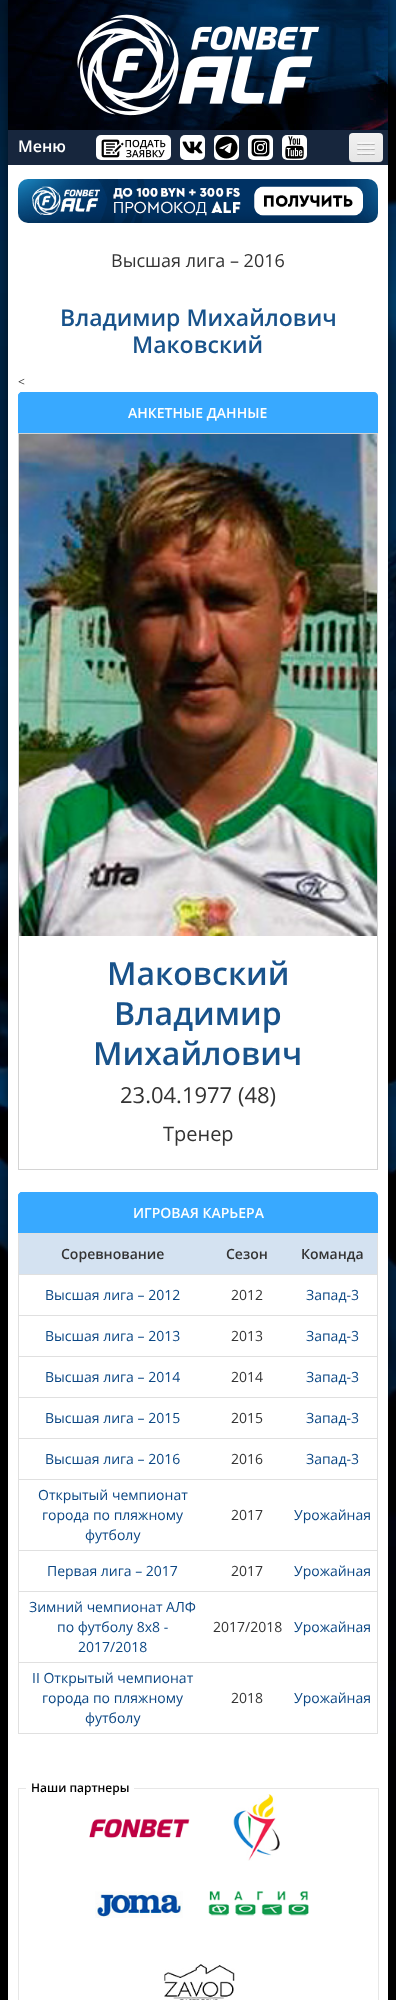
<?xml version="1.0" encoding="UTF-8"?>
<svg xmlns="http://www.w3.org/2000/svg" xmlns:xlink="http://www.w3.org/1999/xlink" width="396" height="2000">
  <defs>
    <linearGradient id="g1" gradientUnits="userSpaceOnUse" x1="366" y1="133" x2="366" y2="162"><stop offset="0" stop-color="#f2f2f2" /><stop offset="1" stop-color="#e5e5e5" /></linearGradient>
  </defs>
  <rect width="100%" height="100%" fill="#ffffff" />
  <image x="0" y="0" width="396" height="2000" xlink:href="image1.png" />
  <rect x="8" width="380" height="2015" fill="#000000" fill-opacity="0.5" filter="blur(5px)" />
  <image x="8" y="0" width="380" height="130" xlink:href="image2.png" />
  <image x="77" y="14" width="243" height="102" xlink:href="image3.png" />
  <rect x="8" y="130" width="380" height="35" fill="#17263d" />
  <rect x="96" y="135" width="75" height="25" rx="5" fill="#ffffff" />
  <image x="101" y="139" width="65" height="19" xlink:href="image4.png" />
  <rect x="180" y="135" width="25" height="25" rx="5" fill="#ffffff" />
  <image x="182" y="141" width="21" height="13" xlink:href="image5.png" />
  <rect x="214" y="135" width="25" height="25" rx="5" fill="#ffffff" />
  <image x="215" y="136" width="23" height="23" xlink:href="image6.png" />
  <rect x="248" y="135" width="25" height="25" rx="5" fill="#ffffff" />
  <image x="251" y="138" width="19" height="19" xlink:href="image7.png" />
  <rect x="282" y="135" width="25" height="25" rx="5" fill="#ffffff" />
  <image x="285" y="136" width="19" height="23" xlink:href="image8.png" />
  <path d="M 349 158 c 0 5.5 3.5 5 8.5 5 h 17 c 5 0 8.5 0.5 8.5 -5 c 0 2 -2 4 -4 4 h -26 c -2 0 -4 -2 -4 -4 z" fill="#28364c" />
  <rect x="349" y="133" width="34" height="29" rx="4" fill="url(#g1)" />
  <path d="M 353 134 h 26 c 2 0 4 2 4 4 c 0 -5.5 -3.5 -5 -8.5 -5 h -17 c -5 0 -8.5 -0.5 -8.5 5 c 0 -2 2 -4 4 -4 z" fill="#ffffff" fill-opacity="0.1" />
  <path d="M 357 143.5 c -1 2 3.5 1.5 3.5 1.5 h 11 c 0 0 4.5 0.5 3.5 -1.5 c -1 1 -7.5 0.5 -9 0.5 c -1.5 0 -8 0.5 -9 -0.5 z" fill="#b2b2b2" />
  <rect x="357" y="142" width="18" height="2" rx="1" fill="#f5f5f5" />
  <path d="M 357 148.5 c -1 2 3.5 1.5 3.5 1.5 h 11 c 0 0 4.5 0.5 3.5 -1.5 c -1 1 -7.5 0.5 -9 0.5 c -1.5 0 -8 0.5 -9 -0.5 z" fill="#b0b0b0" />
  <rect x="357" y="147" width="18" height="2" rx="1" fill="#f5f5f5" />
  <path d="M 357 153.5 c -1 2 3.5 1.5 3.5 1.5 h 11 c 0 0 4.5 0.5 3.5 -1.5 c -1 1 -7.5 0.5 -9 0.5 c -1.5 0 -8 0.5 -9 -0.5 z" fill="#aeaeae" />
  <rect x="357" y="152" width="18" height="2" rx="1" fill="#f5f5f5" />
  <rect x="8" y="165" width="380" height="1835" fill="#ffffff" />
  <image x="18" y="179" width="360" height="44" xlink:href="image9.png" />
  <path d="M 22 392 h 352 c 2 0 4 2 4 4 v 37 h -360 v -37 c 0 -2 2 -4 4 -4 z" fill="#38a9ff" />
  <path d="M 22 392 h 2 v 41 h -6 v -37 c 0 -2 2 -4 4 -4 z" fill="#38a9ff" />
  <rect x="18.5" y="433.5" width="359" height="736" fill="none" stroke="#d4d4d4" />
  <image x="19" y="434" width="358" height="502" xlink:href="image10.png" />
  <path d="M 22 1192 h 352 c 2 0 4 2 4 4 v 37 h -360 v -37 c 0 -2 2 -4 4 -4 z" fill="#38a9ff" />
  <path d="M 22 1192 h 2 v 41 h -6 v -37 c 0 -2 2 -4 4 -4 z" fill="#38a9ff" />
  <rect x="18" y="1233" width="360" height="1" fill="#e0e0e0" />
  <rect x="377" y="1233" width="1" height="501" fill="#e0e0e0" />
  <rect x="18" y="1733" width="360" height="1" fill="#e0e0e0" />
  <rect x="18" y="1233" width="1" height="501" fill="#e0e0e0" />
  <rect x="19" y="1234" width="358" height="40" fill="#d4e2f1" />
  <rect x="18" y="1274" width="360" height="1" fill="#e0e0e0" />
  <rect x="18" y="1315" width="360" height="1" fill="#e0e0e0" />
  <rect x="18" y="1356" width="360" height="1" fill="#e0e0e0" />
  <rect x="18" y="1397" width="360" height="1" fill="#e0e0e0" />
  <rect x="18" y="1438" width="360" height="1" fill="#e0e0e0" />
  <rect x="18" y="1479" width="360" height="1" fill="#e0e0e0" />
  <rect x="18" y="1550" width="360" height="1" fill="#e0e0e0" />
  <rect x="18" y="1591" width="360" height="1" fill="#e0e0e0" />
  <rect x="18" y="1662" width="360" height="1" fill="#e0e0e0" />
  <rect x="18" y="1788" width="361" height="1" fill="#e7e7e7" />
  <rect x="378" y="1788" width="1" height="212" fill="#e7e7e7" />
  <rect x="18" y="1788" width="1" height="212" fill="#e7e7e7" />
  <rect x="26" y="1788" width="108" height="1" fill="#ffffff" />
  <image x="89" y="1818" width="101" height="20" xlink:href="image11.png" />
  <image x="233" y="1794" width="47" height="67" xlink:href="image12.png" />
  <image x="95" y="1891" width="88" height="27" xlink:href="image13.png" />
  <image x="208" y="1891" width="101" height="25" xlink:href="image14.png" />
  <image x="164" y="1964" width="71" height="36" xlink:href="image15.png" />
  <text x="18" y="152" style="font-family: Open Sans; font-size: 16px; font-weight: 600; fill: #ffffff">Меню</text>
  <text x="111" y="267" style="font-family: Open Sans; font-size: 18px; fill: #333333">Высшая лига – 2016</text>
  <text x="60" y="326" style="font-family: Open Sans; font-size: 23px; font-weight: 600; fill: #19538b">Владимир Михайлович</text>
  <text x="132" y="353" style="font-family: Open Sans; font-size: 23px; font-weight: 600; fill: #19538b">Маковский</text>
  <text x="18" y="386" style="font-family: Open Sans; font-size: 12px; fill: #333333">&lt;</text>
  <text x="128" y="418" style="font-family: Open Sans; font-size: 14px; font-weight: 600; fill: #ffffff">АНКЕТНЫЕ ДАННЫЕ</text>
  <text x="107" y="985" style="font-family: Open Sans; font-size: 32px; font-weight: 600; fill: #19538b">Маковский</text>
  <text x="114" y="1025" style="font-family: Open Sans; font-size: 32px; font-weight: 600; fill: #19538b">Владимир</text>
  <text x="93" y="1065" style="font-family: Open Sans; font-size: 32px; font-weight: 600; fill: #19538b">Михайлович</text>
  <text x="120" y="1103" style="font-family: Open Sans; font-size: 22px; fill: #333333">23.04.1977 (48)</text>
  <text x="163" y="1141" style="font-family: Open Sans; font-size: 20px; fill: #333333">Тренер</text>
  <text x="133" y="1218" style="font-family: Open Sans; font-size: 14px; font-weight: 600; fill: #ffffff">ИГРОВАЯ КАРЬЕРА</text>
  <text x="61" y="1259" style="font-family: Open Sans; font-size: 14px; font-weight: 600; fill: #333333">Соревнование</text>
  <text x="226" y="1259" style="font-family: Open Sans; font-size: 14px; font-weight: 600; fill: #333333">Сезон</text>
  <text x="301" y="1259" style="font-family: Open Sans; font-size: 14px; font-weight: 600; fill: #333333">Команда</text>
  <text x="45" y="1300" style="font-family: Open Sans; font-size: 14px; fill: #0b4784">Высшая лига – 2012</text>
  <text x="231" y="1300" style="font-family: Open Sans; font-size: 14px; fill: #333333">2012</text>
  <text x="306" y="1300" style="font-family: Open Sans; font-size: 14px; fill: #0b4784">Запад-3</text>
  <text x="45" y="1341" style="font-family: Open Sans; font-size: 14px; fill: #0b4784">Высшая лига – 2013</text>
  <text x="231" y="1341" style="font-family: Open Sans; font-size: 14px; fill: #333333">2013</text>
  <text x="306" y="1341" style="font-family: Open Sans; font-size: 14px; fill: #0b4784">Запад-3</text>
  <text x="45" y="1382" style="font-family: Open Sans; font-size: 14px; fill: #0b4784">Высшая лига – 2014</text>
  <text x="231" y="1382" style="font-family: Open Sans; font-size: 14px; fill: #333333">2014</text>
  <text x="306" y="1382" style="font-family: Open Sans; font-size: 14px; fill: #0b4784">Запад-3</text>
  <text x="45" y="1423" style="font-family: Open Sans; font-size: 14px; fill: #0b4784">Высшая лига – 2015</text>
  <text x="231" y="1423" style="font-family: Open Sans; font-size: 14px; fill: #333333">2015</text>
  <text x="306" y="1423" style="font-family: Open Sans; font-size: 14px; fill: #0b4784">Запад-3</text>
  <text x="45" y="1464" style="font-family: Open Sans; font-size: 14px; fill: #0b4784">Высшая лига – 2016</text>
  <text x="231" y="1464" style="font-family: Open Sans; font-size: 14px; fill: #333333">2016</text>
  <text x="306" y="1464" style="font-family: Open Sans; font-size: 14px; fill: #0b4784">Запад-3</text>
  <text x="38" y="1500" style="font-family: Open Sans; font-size: 14px; fill: #0b4784">Открытый чемпионат</text>
  <text x="42" y="1520" style="font-family: Open Sans; font-size: 14px; fill: #0b4784">города по пляжному</text>
  <text x="85" y="1540" style="font-family: Open Sans; font-size: 14px; fill: #0b4784">футболу</text>
  <text x="231" y="1520" style="font-family: Open Sans; font-size: 14px; fill: #333333">2017</text>
  <text x="294" y="1520" style="font-family: Open Sans; font-size: 14px; fill: #0b4784">Урожайная</text>
  <text x="47" y="1576" style="font-family: Open Sans; font-size: 14px; fill: #0b4784">Первая лига – 2017</text>
  <text x="231" y="1576" style="font-family: Open Sans; font-size: 14px; fill: #333333">2017</text>
  <text x="294" y="1576" style="font-family: Open Sans; font-size: 14px; fill: #0b4784">Урожайная</text>
  <text x="29" y="1612" style="font-family: Open Sans; font-size: 14px; fill: #0b4784">Зимний чемпионат АЛФ</text>
  <text x="57" y="1632" style="font-family: Open Sans; font-size: 14px; fill: #0b4784">по футболу 8х8 -</text>
  <text x="78" y="1652" style="font-family: Open Sans; font-size: 14px; fill: #0b4784">2017/2018</text>
  <text x="213" y="1632" style="font-family: Open Sans; font-size: 14px; fill: #333333">2017/2018</text>
  <text x="294" y="1632" style="font-family: Open Sans; font-size: 14px; fill: #0b4784">Урожайная</text>
  <text x="32" y="1683" style="font-family: Open Sans; font-size: 14px; fill: #0b4784">II Открытый чемпионат</text>
  <text x="42" y="1703" style="font-family: Open Sans; font-size: 14px; fill: #0b4784">города по пляжному</text>
  <text x="85" y="1723" style="font-family: Open Sans; font-size: 14px; fill: #0b4784">футболу</text>
  <text x="231" y="1703" style="font-family: Open Sans; font-size: 14px; fill: #333333">2018</text>
  <text x="294" y="1703" style="font-family: Open Sans; font-size: 14px; fill: #0b4784">Урожайная</text>
  <text x="31" y="1792" style="font-family: Open Sans; font-size: 12px; font-weight: 600; fill: #000000">Наши партнеры</text>
</svg>
